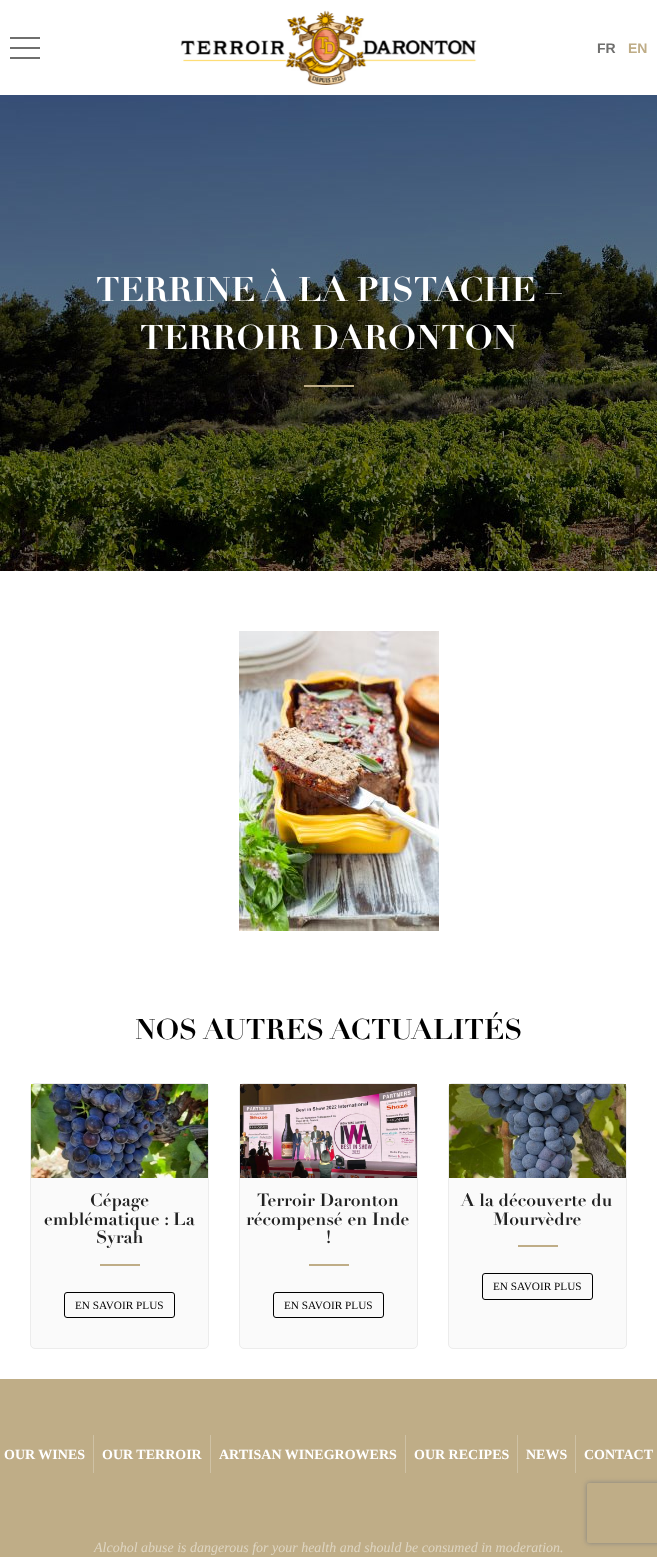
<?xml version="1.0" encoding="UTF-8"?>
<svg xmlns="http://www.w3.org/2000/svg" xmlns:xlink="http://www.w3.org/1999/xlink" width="657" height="1557">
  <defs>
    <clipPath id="clip1"><path d="M 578 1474 h 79 v 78 h -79 z m 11 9 h 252 c 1 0 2 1 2 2 v 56 c 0 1 -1 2 -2 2 h -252 c -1 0 -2 -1 -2 -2 v -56 c 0 -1 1 -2 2 -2 z" clip-rule="evenodd" /></clipPath>
  </defs>
  <rect width="100%" height="100%" fill="#ffffff" />
  <rect x="10" y="37" width="30" height="2" fill="#6f6f6e" />
  <rect x="10" y="47" width="30" height="2" fill="#6f6f6e" />
  <rect x="10" y="57" width="30" height="2" fill="#6f6f6e" />
  <image x="180" y="10" width="297" height="75" xlink:href="image1.png" />
  <image x="0" y="95" width="657" height="476" xlink:href="image2.png" />
  <rect x="304" y="385" width="50" height="2" fill="#bfad87" />
  <image x="239" y="631" width="200" height="300" xlink:href="image3.png" />
  <rect x="30.5" y="1083.5" width="178" height="265" rx="4.5" fill="#fafafa" stroke="#ececec" />
  <image x="31" y="1084" width="177" height="94" xlink:href="image4.png" />
  <rect x="100" y="1264" width="40" height="2" fill="#bfad87" />
  <rect x="64.5" y="1292.5" width="110" height="25" rx="2.5" fill="none" stroke="#000000" />
  <rect x="239.5" y="1083.5" width="178" height="265" rx="4.5" fill="#fafafa" stroke="#ececec" />
  <image x="240" y="1084" width="177" height="94" xlink:href="image5.png" />
  <rect x="309" y="1264" width="40" height="2" fill="#bfad87" />
  <rect x="273.5" y="1292.5" width="110" height="25" rx="2.5" fill="none" stroke="#000000" />
  <rect x="448.5" y="1083.5" width="178" height="265" rx="4.5" fill="#fafafa" stroke="#ececec" />
  <image x="449" y="1084" width="177" height="94" xlink:href="image6.png" />
  <rect x="518" y="1245" width="40" height="2" fill="#bfad87" />
  <rect x="482.5" y="1273.5" width="110" height="26" rx="2.5" fill="none" stroke="#000000" />
  <rect y="1379" width="657" height="178" fill="#bfad87" />
  <rect x="93" y="1435" width="1" height="38" fill="#cfc2a5" />
  <rect x="210" y="1435" width="1" height="38" fill="#cfc2a5" />
  <rect x="405" y="1435" width="1" height="38" fill="#cfc2a5" />
  <rect x="517" y="1435" width="1" height="38" fill="#cfc2a5" />
  <rect x="575" y="1435" width="1" height="38" fill="#cfc2a5" />
  <g clip-path="url(#clip1)">
    <rect x="587" y="1483" width="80" height="60" rx="2" fill="#808080" filter="blur(2.5px)" />
  </g>
  <text x="597" y="53" style="font-family: Liberation Sans; font-size: 14px; font-weight: bold; fill: #6f6f6e">FR</text>
  <text x="628" y="53" style="font-family: Liberation Sans; font-size: 14px; font-weight: bold; fill: #bfad87">EN</text>
  <text x="96" y="301" style="font-family: Didot; font-size: 33.6px; font-weight: bold; fill: #ffffff">TERRINE À LA PISTACHE –</text>
  <text x="140" y="349" style="font-family: Didot; font-size: 33.6px; font-weight: bold; fill: #ffffff">TERROIR DARONTON</text>
  <text x="135" y="1039" style="font-family: Didot; font-size: 28px; font-weight: bold; fill: #000000">NOS AUTRES ACTUALITÉS</text>
  <text x="90" y="1206" style="font-family: Didot; font-size: 17.5px; font-weight: bold; fill: #222222">Cépage</text>
  <text x="44" y="1225" style="font-family: Didot; font-size: 17.5px; font-weight: bold; fill: #222222">emblématique : La</text>
  <text x="96" y="1243" style="font-family: Didot; font-size: 17.5px; font-weight: bold; fill: #222222">Syrah</text>
  <text x="75" y="1309" style="font-family: Liberation Serif; font-size: 11.25px; fill: #000000">EN SAVOIR PLUS</text>
  <text x="257" y="1206" style="font-family: Didot; font-size: 17.5px; font-weight: bold; fill: #222222">Terroir Daronton</text>
  <text x="246" y="1225" style="font-family: Didot; font-size: 17.5px; font-weight: bold; fill: #222222">récompensé en Inde</text>
  <text x="326" y="1243" style="font-family: Didot; font-size: 17.5px; font-weight: bold; fill: #222222">!</text>
  <text x="284" y="1309" style="font-family: Liberation Serif; font-size: 11.25px; fill: #000000">EN SAVOIR PLUS</text>
  <text x="461" y="1206" style="font-family: Didot; font-size: 17.5px; font-weight: bold; fill: #222222">A la découverte du</text>
  <text x="493" y="1225" style="font-family: Didot; font-size: 17.5px; font-weight: bold; fill: #222222">Mourvèdre</text>
  <text x="493" y="1290" style="font-family: Liberation Serif; font-size: 11.25px; fill: #000000">EN SAVOIR PLUS</text>
  <text x="4" y="1459" style="font-family: Liberation Serif; font-size: 14px; font-weight: bold; fill: #ffffff">OUR WINES</text>
  <text x="102" y="1459" style="font-family: Liberation Serif; font-size: 14px; font-weight: bold; fill: #ffffff">OUR TERROIR</text>
  <text x="219" y="1459" style="font-family: Liberation Serif; font-size: 14px; font-weight: bold; fill: #ffffff">ARTISAN WINEGROWERS</text>
  <text x="414" y="1459" style="font-family: Liberation Serif; font-size: 14px; font-weight: bold; fill: #ffffff">OUR RECIPES</text>
  <text x="526" y="1459" style="font-family: Liberation Serif; font-size: 14px; font-weight: bold; fill: #ffffff">NEWS</text>
  <text x="584" y="1459" style="font-family: Liberation Serif; font-size: 14px; font-weight: bold; fill: #ffffff">CONTACT</text>
  <text x="94" y="1552" style="font-family: Liberation Serif; font-size: 14px; font-style: italic; fill: #dfd6c3">Alcohol abuse is dangerous for your health and should be consumed in moderation.</text>
</svg>
